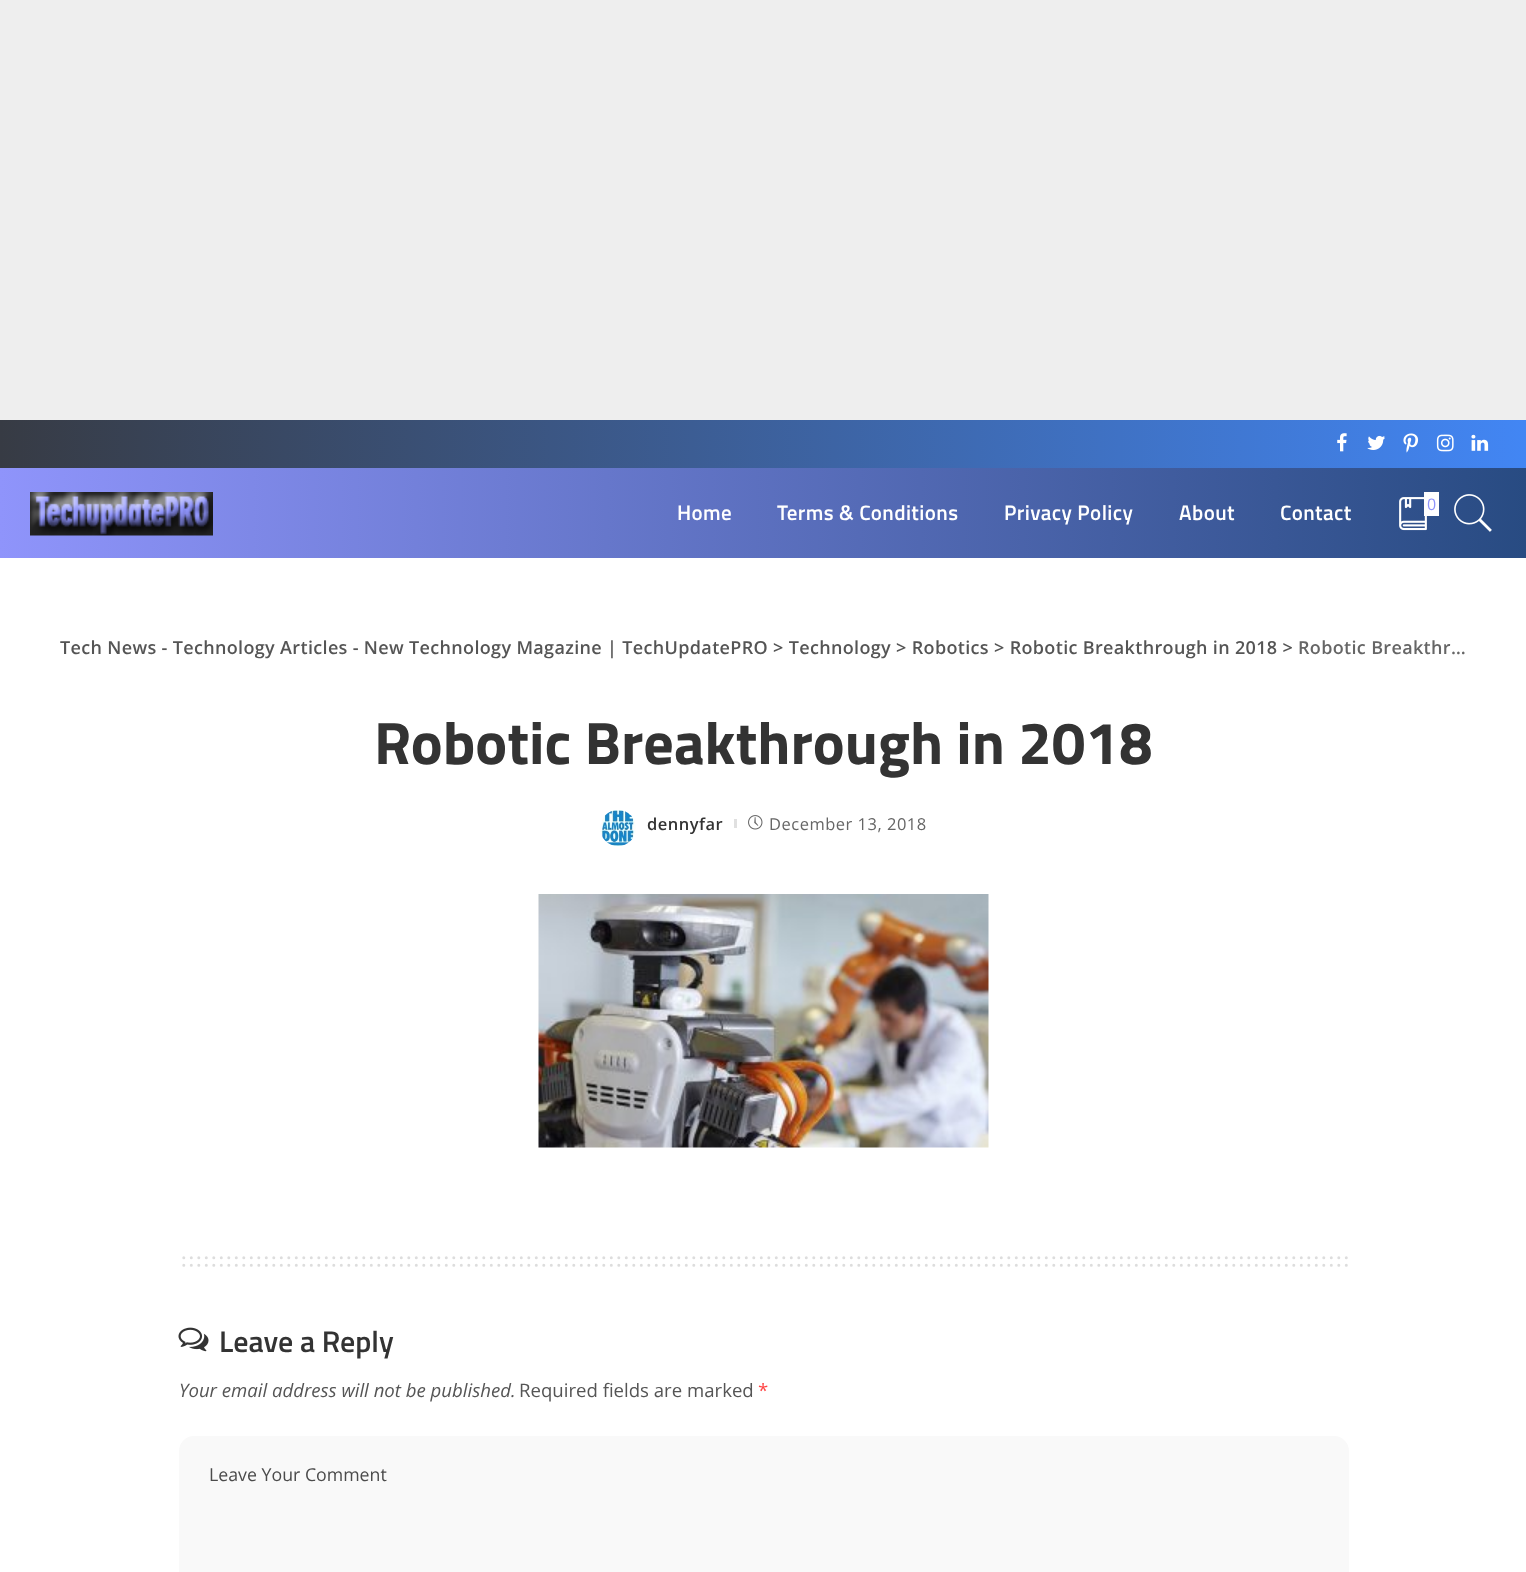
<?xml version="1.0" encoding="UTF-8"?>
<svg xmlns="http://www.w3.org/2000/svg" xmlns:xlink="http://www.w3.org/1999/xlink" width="1526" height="1572">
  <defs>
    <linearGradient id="g1" gradientUnits="userSpaceOnUse" x1="0" y1="444" x2="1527" y2="444"><stop offset="0" stop-color="#373b44" /><stop offset="1" stop-color="#4286f4" /></linearGradient>
    <linearGradient id="g2" gradientUnits="userSpaceOnUse" x1="0" y1="513" x2="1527" y2="513"><stop offset="0" stop-color="#8f94fb" /><stop offset="1" stop-color="#284b82" /></linearGradient>
  </defs>
  <rect width="100%" height="100%" fill="#ffffff" />
  <rect width="1526" height="420" fill="#eeeeee" />
  <rect y="420" width="1526" height="48" fill="url(#g1)" />
  <image x="1337" y="433" width="10" height="19" xlink:href="image1.png" />
  <image x="1367" y="435" width="18" height="15" xlink:href="image2.png" />
  <image x="1403" y="433" width="16" height="20" xlink:href="image3.png" />
  <image x="1436" y="434" width="18" height="18" xlink:href="image4.png" />
  <image x="1471" y="434" width="18" height="17" xlink:href="image5.png" />
  <rect y="468" width="1526" height="90" fill="url(#g2)" />
  <image x="30" y="492" width="183" height="44" xlink:href="image6.png" />
  <image x="1399" y="497" width="28" height="34" xlink:href="image7.png" />
  <rect x="1424" y="492" width="15" height="24" fill="#ffffff" />
  <image x="1454" y="494" width="38" height="38" xlink:href="image8.png" />
  <image x="600" y="810" width="36" height="36" xlink:href="image9.png" />
  <rect x="734" y="819" width="3" height="9" fill="#e0e0e0" />
  <image x="748" y="815" width="15" height="15" xlink:href="image10.png" />
  <image x="538" y="894" width="451" height="254" xlink:href="image11.png" />
  <path d="M 183.8 1257.8 h 1162.8" fill="none" stroke="#dddddd" stroke-width="3" stroke-linecap="round" stroke-dasharray="0 7.5" />
  <path d="M 183.8 1265.2 h 1162.8" fill="none" stroke="#dddddd" stroke-width="3" stroke-linecap="round" stroke-dasharray="0 7.5" />
  <image x="178" y="1327" width="31" height="25" xlink:href="image12.png" />
  <rect x="179" y="1436" width="1170" height="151" rx="15" fill="#f9f9f9" />
  <text x="677" y="520" style="font-family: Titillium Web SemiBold; font-size: 21px; font-weight: 600; letter-spacing: 0.4px; fill: #ffffff">Home</text>
  <text x="777" y="520" style="font-family: Titillium Web SemiBold; font-size: 21px; font-weight: 600; letter-spacing: 0.4px; fill: #ffffff">Terms &amp; Conditions</text>
  <text x="1004" y="520" style="font-family: Titillium Web SemiBold; font-size: 21px; font-weight: 600; letter-spacing: 0.4px; fill: #ffffff">Privacy Policy</text>
  <text x="1179" y="520" style="font-family: Titillium Web SemiBold; font-size: 21px; font-weight: 600; letter-spacing: 0.4px; fill: #ffffff">About</text>
  <text x="1280" y="520" style="font-family: Titillium Web SemiBold; font-size: 21px; font-weight: 600; letter-spacing: 0.4px; fill: #ffffff">Contact</text>
  <text x="1427" y="510" style="font-family: Open Sans; font-size: 16px; fill: #8f94fb">0</text>
  <text x="60" y="654" style="font-family: Open Sans; font-size: 18px; font-weight: 600; letter-spacing: 0.34px; fill: #555555">Tech News - Technology Articles - New Technology Magazine | TechUpdatePRO &gt; Technology &gt; Robotics &gt; Robotic Breakthrough in 2018 &gt;</text>
  <text x="1298" y="654" style="font-family: Open Sans; font-size: 18px; font-weight: 600; letter-spacing: 0.34px; fill: #666666">Robotic Breakthr…</text>
  <text x="374" y="764" style="font-family: Titillium Web; font-size: 60px; font-weight: bold; fill: #333333">Robotic Breakthrough in 2018</text>
  <text x="647" y="830" style="font-family: Open Sans; font-size: 16.5px; font-weight: 600; letter-spacing: 0.5px; fill: #333333">dennyfar</text>
  <text x="769" y="830" style="font-family: Open Sans; font-size: 16.5px; letter-spacing: 0.5px; fill: #666666">December 13, 2018</text>
  <text x="219" y="1352" style="font-family: Titillium Web SemiBold; font-size: 30px; font-weight: 600; fill: #333333">Leave a Reply</text>
  <text x="179" y="1397" style="font-family: Open Sans; font-size: 18.6px; font-style: italic; fill: #555555">Your email address will not be published.</text>
  <text x="519" y="1397" style="font-family: Open Sans; font-size: 18.6px; fill: #555555">Required fields are marked</text>
  <text x="758" y="1397" style="font-family: Open Sans; font-size: 18.6px; fill: #ff4545">*</text>
  <text x="209" y="1481" style="font-family: Open Sans; font-size: 17.75px; fill: #4b4b4b">Leave Your Comment</text>
</svg>
